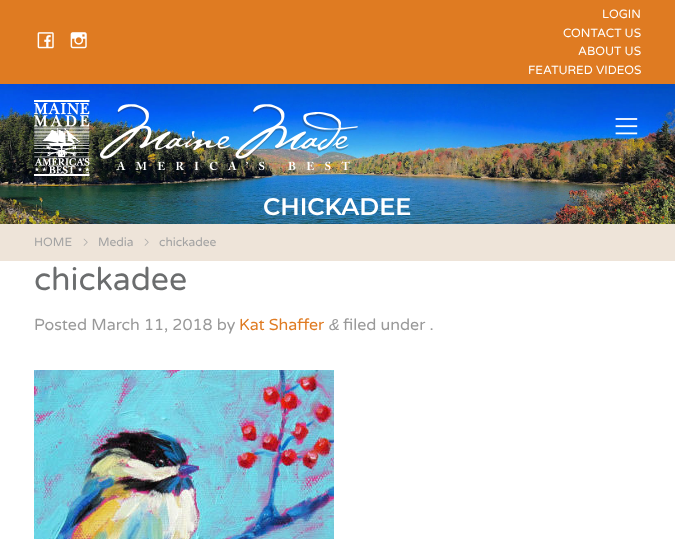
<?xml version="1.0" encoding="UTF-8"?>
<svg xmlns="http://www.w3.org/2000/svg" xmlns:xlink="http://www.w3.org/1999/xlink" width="675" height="539">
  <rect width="100%" height="100%" fill="#ffffff" />
  <rect width="675" height="84" fill="#df7b22" />
  <image x="37" y="32" width="17" height="17" xlink:href="image1.png" />
  <image x="70" y="32" width="17" height="17" xlink:href="image2.png" />
  <image x="0" y="84" width="675" height="140" xlink:href="image3.png" />
  <image x="34" y="100" width="324" height="76" xlink:href="image4.png" />
  <image x="615" y="118" width="23" height="17" xlink:href="image5.png" />
  <rect y="224" width="675" height="37" fill="#eee4d9" />
  <image x="83" y="238" width="5" height="8" xlink:href="image6.png" />
  <image x="144" y="238" width="5" height="8" xlink:href="image6.png" />
  <image x="34" y="370" width="300" height="169" xlink:href="image7.png" />
  <text x="602" y="18" style="font-family: Varela Round; font-size: 12px; fill: #ffffff">LOGIN</text>
  <text x="563" y="37" style="font-family: Varela Round; font-size: 12px; fill: #ffffff">CONTACT US</text>
  <text x="578" y="55" style="font-family: Varela Round; font-size: 12px; fill: #ffffff">ABOUT US</text>
  <text x="528" y="74" style="font-family: Varela Round; font-size: 12px; fill: #ffffff">FEATURED VIDEOS</text>
  <text x="263" y="215" style="font-family: Montserrat; font-size: 24px; font-weight: 600; fill: #ffffff">CHICKADEE</text>
  <text x="34" y="246" style="font-family: Varela Round; font-size: 12px; fill: #a3a3a3">HOME</text>
  <text x="98" y="246" style="font-family: Varela Round; font-size: 12px; fill: #a3a3a3">Media</text>
  <text x="159" y="246" style="font-family: Varela Round; font-size: 12px; fill: #a3a3a3">chickadee</text>
  <text x="34" y="290" style="font-family: Varela Round; font-size: 32px; fill: #6b6d6e">chickadee</text>
  <text x="34" y="330" style="font-family: Varela Round; font-size: 16px; fill: #999999">Posted March 11, 2018 by</text>
  <text x="239" y="330" style="font-family: Varela Round; font-size: 16px; fill: #df7b22">Kat Shaffer</text>
  <text x="329" y="330" style="font-family: Liberation Sans; font-size: 16px; font-style: italic; fill: #999999">&amp;</text>
  <text x="343" y="330" style="font-family: Varela Round; font-size: 16px; fill: #999999">filed under .</text>
</svg>
